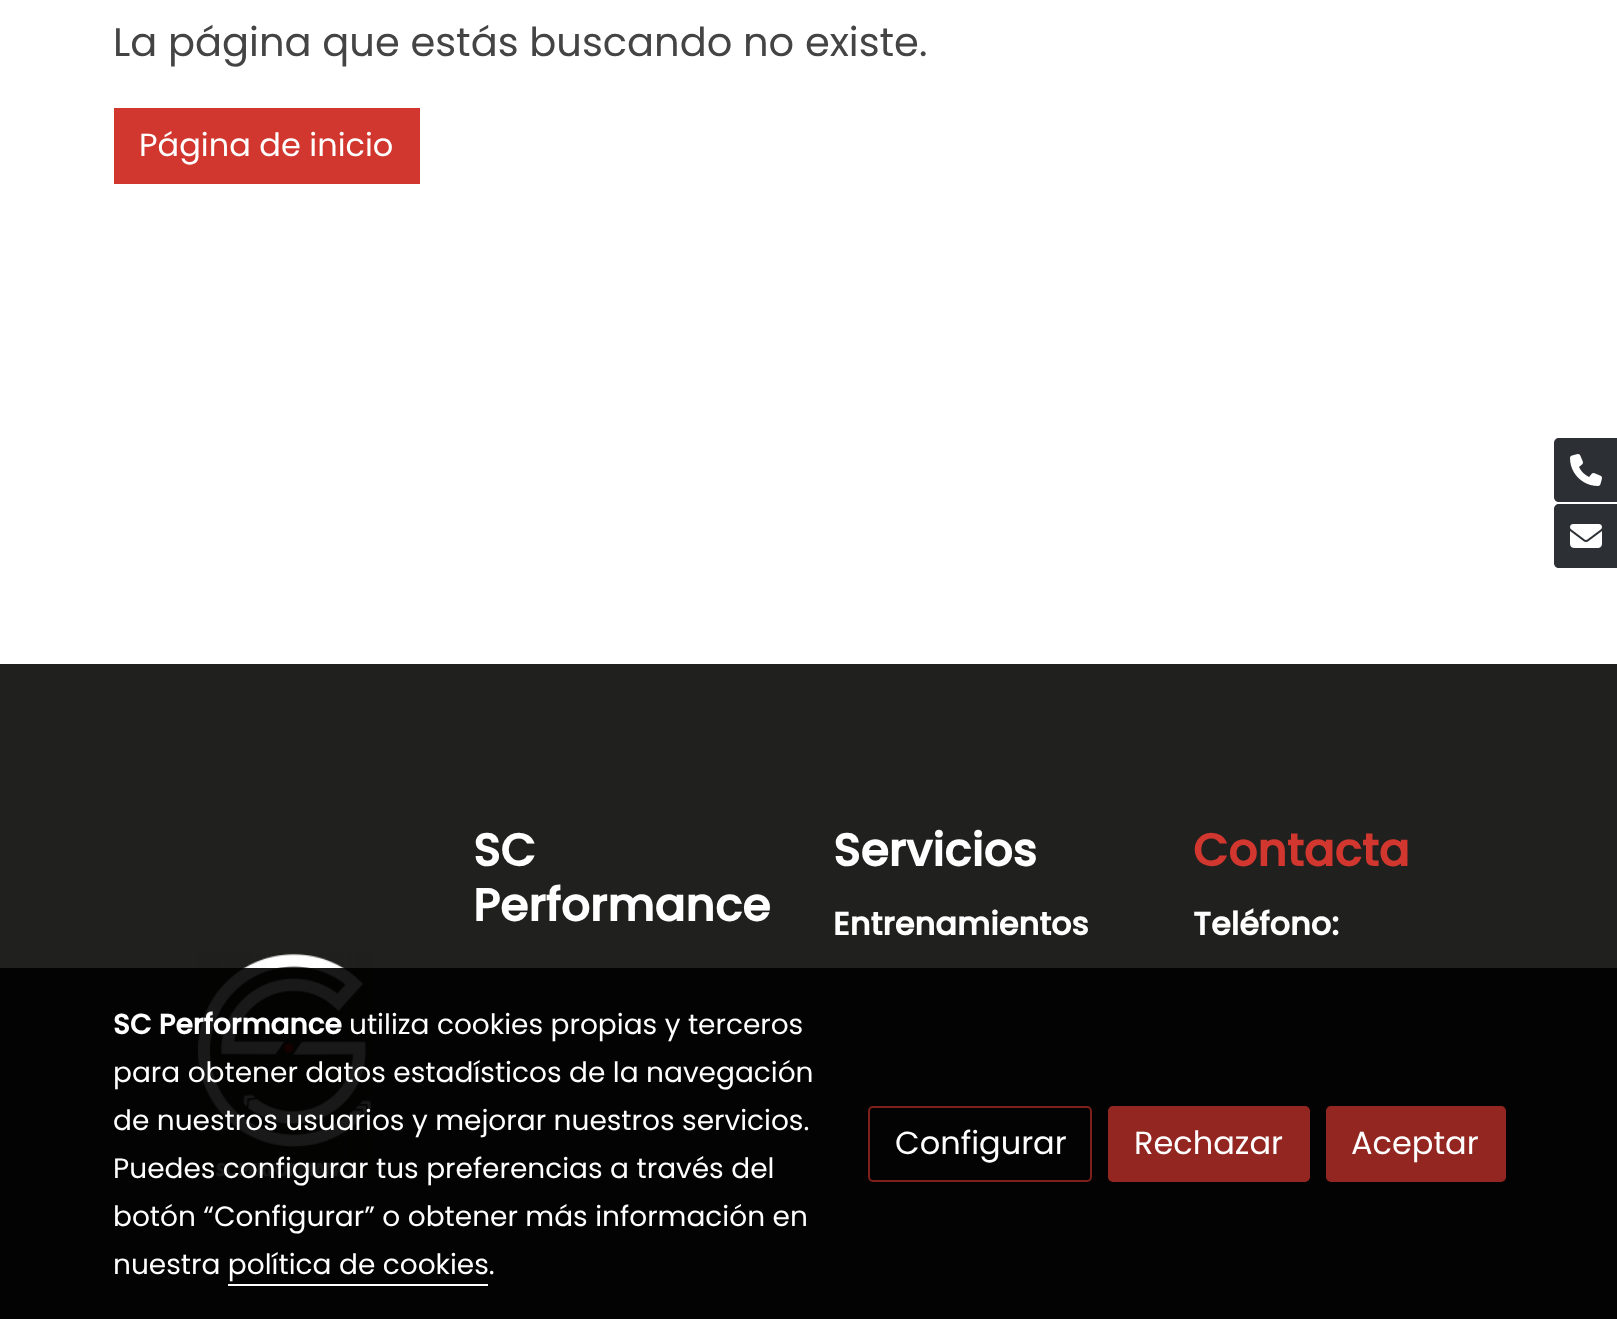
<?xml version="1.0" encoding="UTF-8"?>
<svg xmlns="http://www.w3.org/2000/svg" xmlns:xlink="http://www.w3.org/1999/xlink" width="1617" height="1319">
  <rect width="100%" height="100%" fill="#ffffff" />
  <rect x="114" y="108" width="306" height="76" fill="#d1372f" />
  <rect y="664" width="1617" height="655" fill="#20201e" />
  <image x="197" y="953" width="175" height="225" xlink:href="image1.png" />
  <path d="M 1559 438 h 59 v 64 h -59 c -3 0 -5 -2 -5 -5 v -54 c 0 -3 2 -5 5 -5 z" fill="#2c3034" />
  <image x="1570" y="454" width="32" height="32" xlink:href="image2.png" />
  <path d="M 1559 504 h 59 v 64 h -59 c -3 0 -5 -2 -5 -5 v -54 c 0 -3 2 -5 5 -5 z" fill="#2c3034" />
  <image x="1570" y="524" width="32" height="24" xlink:href="image3.png" />
  <rect y="968" width="1617" height="351" fill="#000000" fill-opacity="0.9" />
  <rect x="228" y="1284" width="260" height="2" fill="#ffffff" />
  <rect x="869" y="1107" width="222" height="74" rx="4" fill="none" stroke="#7e211c" stroke-width="2" />
  <rect x="1109" y="1107" width="200" height="74" rx="4" fill="#932621" stroke="#932621" stroke-width="2" />
  <rect x="1327" y="1107" width="178" height="74" rx="4" fill="#932621" stroke="#932621" stroke-width="2" />
  <text x="113" y="56" style="font-family: Poppins; font-size: 40px; fill: #444444">La página que estás buscando no existe.</text>
  <text x="139" y="156" style="font-family: Poppins; font-size: 32px; fill: #ffffff">Página de inicio</text>
  <text x="473" y="866" style="font-family: Poppins; font-size: 45.5px; font-weight: bold; fill: #ffffff">SC</text>
  <text x="473" y="921" style="font-family: Poppins; font-size: 45.5px; font-weight: bold; fill: #ffffff">Performance</text>
  <text x="833" y="866" style="font-family: Poppins; font-size: 45.5px; font-weight: bold; fill: #ffffff">Servicios</text>
  <text x="833" y="935" style="font-family: Poppins; font-size: 32px; font-weight: bold; fill: #ffffff">Entrenamientos</text>
  <text x="1193" y="866" style="font-family: Poppins; font-size: 45.5px; font-weight: bold; fill: #d1372f">Contacta</text>
  <text x="1193" y="935" style="font-family: Poppins; font-size: 32px; font-weight: bold; fill: #ffffff">Teléfono:</text>
  <text x="113" y="1034" style="font-family: Poppins; font-size: 28px; font-weight: bold; fill: #ffffff">SC Performance</text>
  <text x="349" y="1034" style="font-family: Poppins; font-size: 28px; fill: #ffffff">utiliza cookies propias y terceros</text>
  <text x="113" y="1082" style="font-family: Poppins; font-size: 28px; fill: #ffffff">para obtener datos estadísticos de la navegación</text>
  <text x="113" y="1130" style="font-family: Poppins; font-size: 28px; fill: #ffffff">de nuestros usuarios y mejorar nuestros servicios.</text>
  <text x="113" y="1178" style="font-family: Poppins; font-size: 28px; fill: #ffffff">Puedes configurar tus preferencias a través del</text>
  <text x="113" y="1226" style="font-family: Poppins; font-size: 28px; fill: #ffffff">botón “Configurar” o obtener más información en</text>
  <text x="113" y="1274" style="font-family: Poppins; font-size: 28px; fill: #ffffff">nuestra política de cookies.</text>
  <text x="895" y="1154" style="font-family: Poppins; font-size: 32px; fill: #ffffff">Configurar</text>
  <text x="1134" y="1154" style="font-family: Poppins; font-size: 32px; fill: #ffffff">Rechazar</text>
  <text x="1351" y="1154" style="font-family: Poppins; font-size: 32px; fill: #ffffff">Aceptar</text>
</svg>
